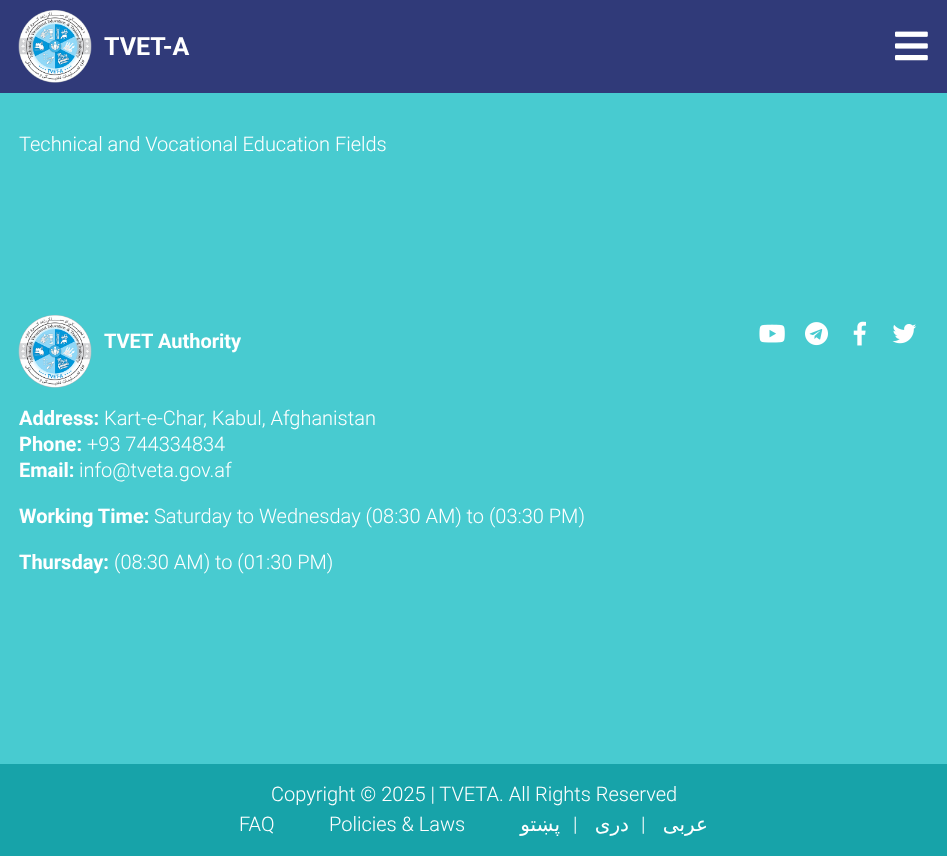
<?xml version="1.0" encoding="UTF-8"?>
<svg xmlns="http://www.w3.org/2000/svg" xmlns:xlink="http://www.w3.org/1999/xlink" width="947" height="856">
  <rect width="100%" height="100%" fill="#48cbd0" />
  <rect width="947" height="93" fill="#303a79" />
  <image x="18" y="10" width="74" height="73" xlink:href="image1.png" />
  <image x="895" y="31" width="33" height="30" xlink:href="image2.png" />
  <image x="18" y="315" width="74" height="73" xlink:href="image3.png" />
  <image x="759" y="324" width="26" height="19" xlink:href="image4.png" />
  <image x="805" y="322" width="23" height="24" xlink:href="image5.png" />
  <image x="853" y="321" width="13" height="25" xlink:href="image6.png" />
  <image x="892" y="324" width="25" height="20" xlink:href="image7.png" />
  <rect y="764" width="947" height="92" fill="#17a3a9" />
  <text x="104" y="55" style="font-family: Roboto; font-size: 25px; font-weight: bold; fill: #ffffff">TVET-A</text>
  <text x="19" y="151" style="font-family: Roboto; font-size: 20px; font-weight: 300; fill: #ffffff">Technical and Vocational Education Fields</text>
  <text x="104" y="348" style="font-family: Roboto; font-size: 20px; font-weight: bold; fill: #ffffff">TVET Authority</text>
  <text x="19" y="425" style="font-family: Roboto; font-size: 20px; font-weight: bold; fill: #ffffff">Address:</text>
  <text x="104" y="425" style="font-family: Roboto; font-size: 20px; font-weight: 300; fill: #ffffff">Kart-e-Char, Kabul, Afghanistan</text>
  <text x="19" y="451" style="font-family: Roboto; font-size: 20px; font-weight: bold; fill: #ffffff">Phone:</text>
  <text x="87" y="451" style="font-family: Roboto; font-size: 20px; font-weight: 300; fill: #ffffff">+93 744334834</text>
  <text x="19" y="477" style="font-family: Roboto; font-size: 20px; font-weight: bold; fill: #ffffff">Email:</text>
  <text x="79" y="477" style="font-family: Roboto; font-size: 20px; font-weight: 300; fill: #ffffff">info@tveta.gov.af</text>
  <text x="19" y="523" style="font-family: Roboto; font-size: 20px; font-weight: bold; fill: #ffffff">Working Time:</text>
  <text x="154" y="523" style="font-family: Roboto; font-size: 20px; font-weight: 300; fill: #ffffff">Saturday to Wednesday (08:30 AM) to (03:30 PM)</text>
  <text x="19" y="569" style="font-family: Roboto; font-size: 20px; font-weight: bold; fill: #ffffff">Thursday:</text>
  <text x="114" y="569" style="font-family: Roboto; font-size: 20px; font-weight: 300; fill: #ffffff">(08:30 AM) to (01:30 PM)</text>
  <text x="271" y="801" style="font-family: Roboto; font-size: 20px; font-weight: 300; fill: #ffffff">Copyright © 2025 | TVETA. All Rights Reserved</text>
  <text x="239" y="831" style="font-family: Roboto; font-size: 20px; font-weight: 300; fill: #ffffff">FAQ</text>
  <text x="329" y="831" style="font-family: Roboto; font-size: 20px; font-weight: 300; fill: #ffffff">Policies &amp; Laws</text>
  <text x="560" y="831" style="font-family: DejaVu Sans; font-size: 20px; direction: rtl; fill: #ffffff">پښتو</text>
  <text x="573" y="831" style="font-family: Roboto; font-size: 20px; font-weight: 300; fill: #ffffff">|</text>
  <text x="629" y="831" style="font-family: DejaVu Sans; font-size: 20px; direction: rtl; fill: #ffffff">دری</text>
  <text x="641" y="831" style="font-family: Roboto; font-size: 20px; font-weight: 300; fill: #ffffff">|</text>
  <text x="708" y="831" style="font-family: DejaVu Sans; font-size: 20px; direction: rtl; fill: #ffffff">عربی</text>
</svg>
